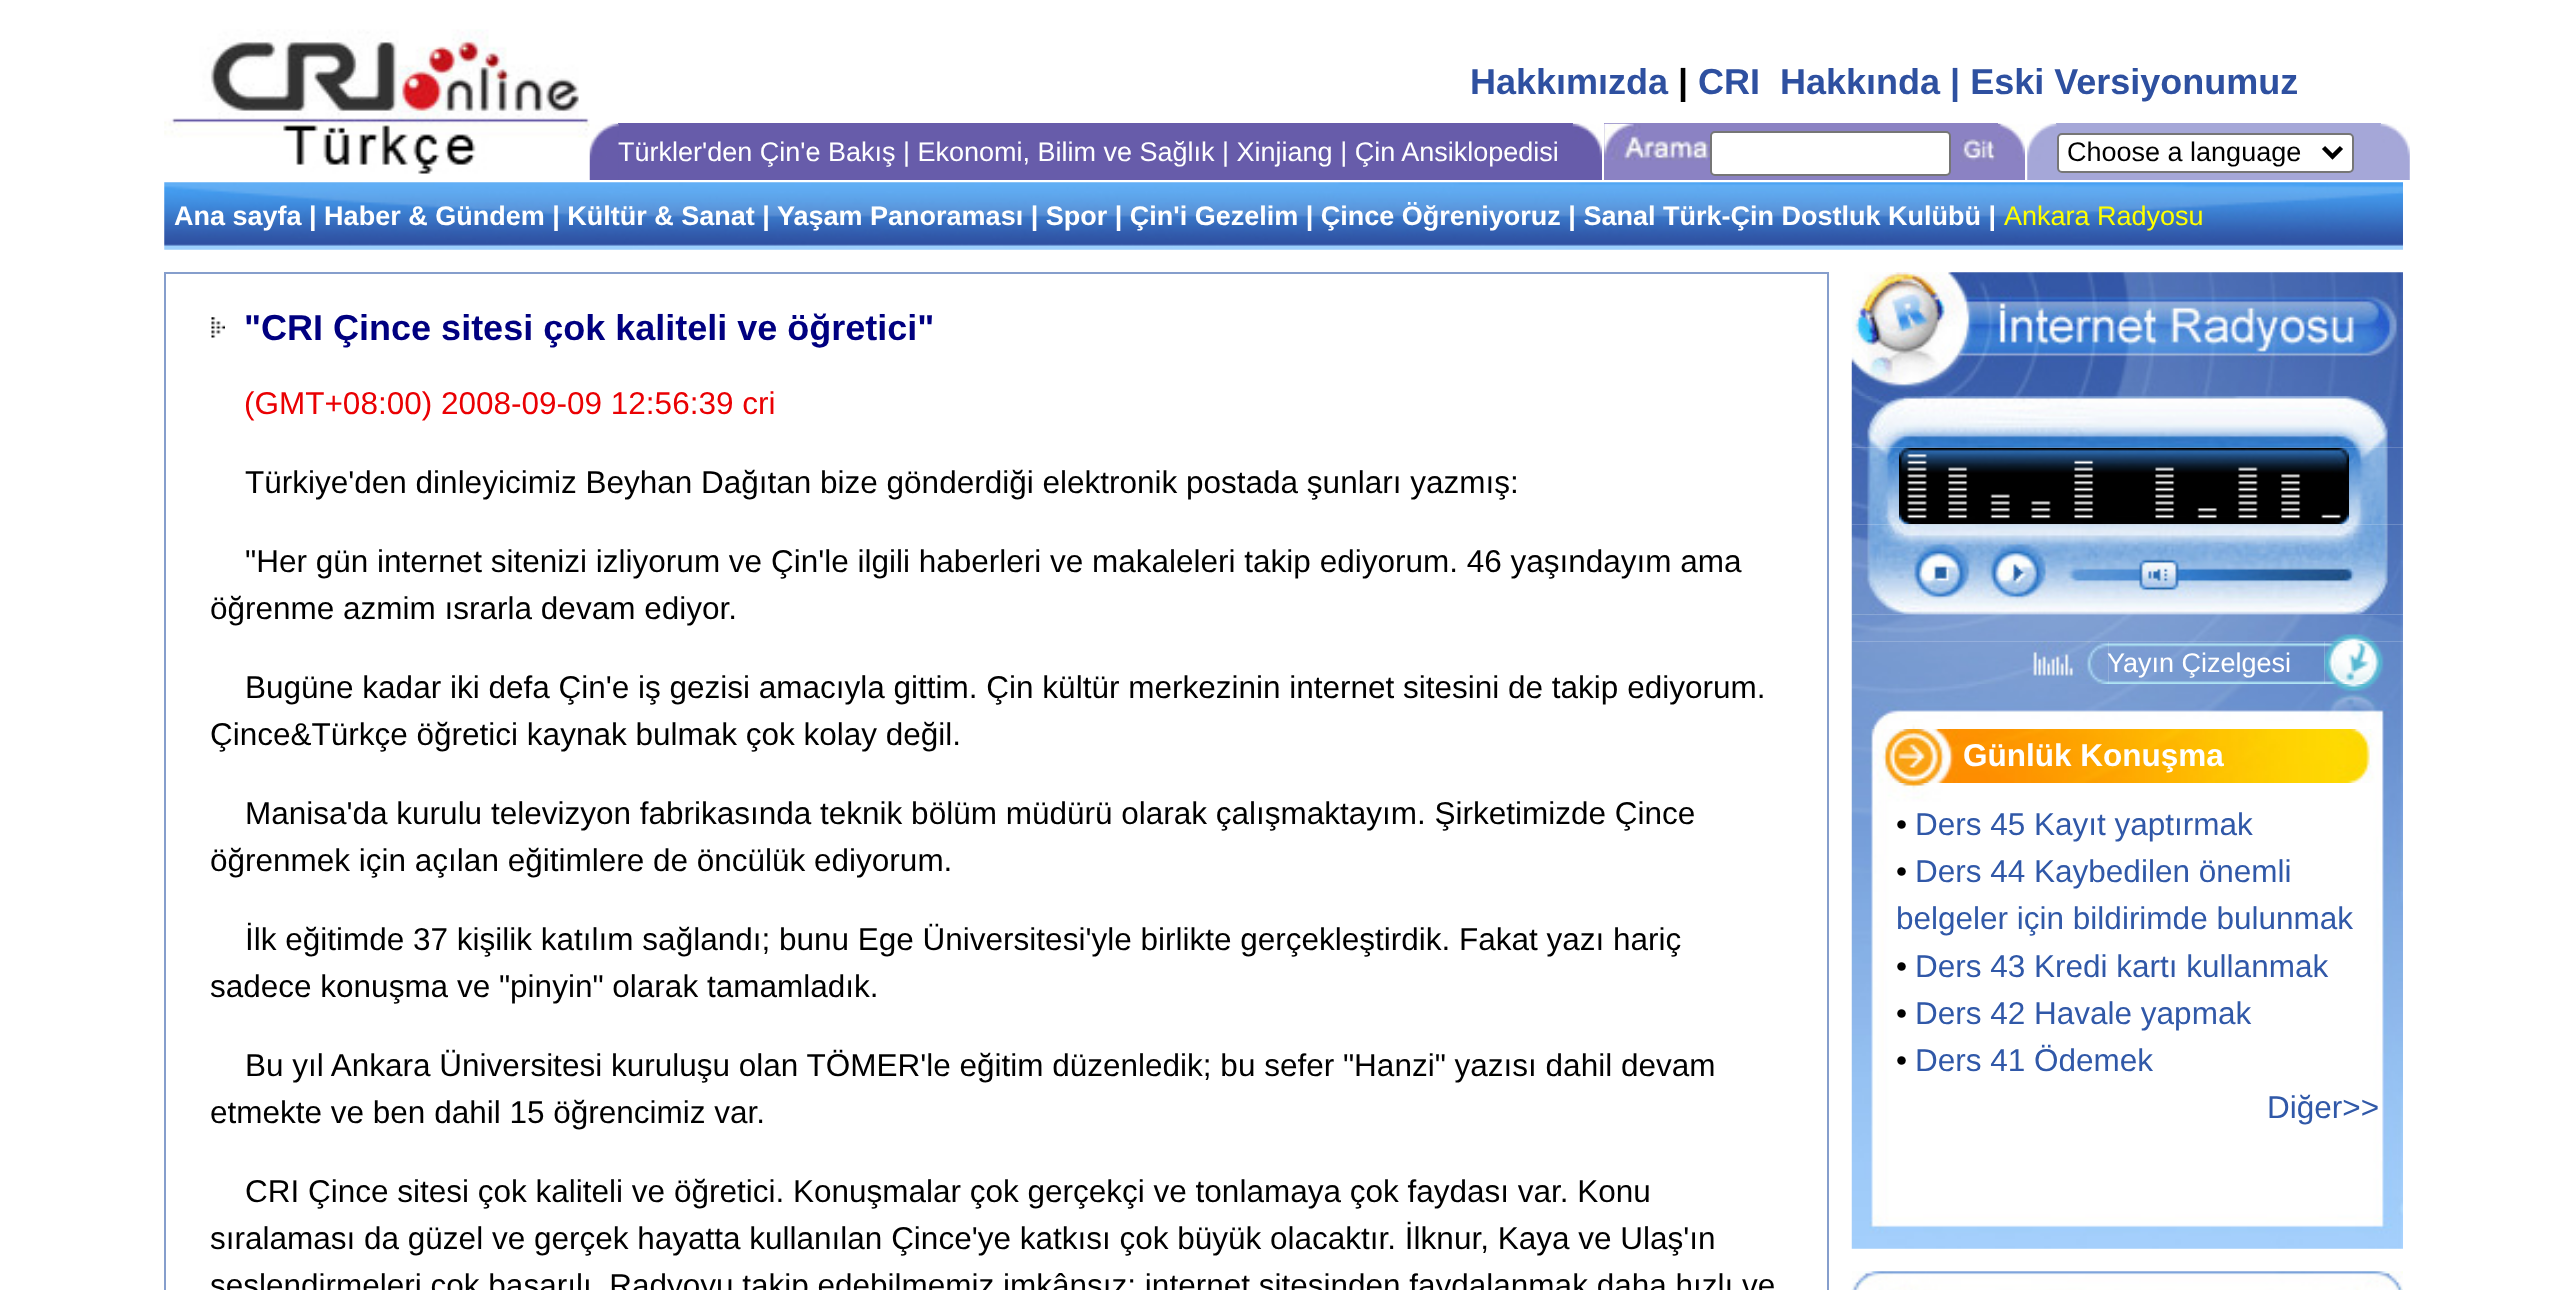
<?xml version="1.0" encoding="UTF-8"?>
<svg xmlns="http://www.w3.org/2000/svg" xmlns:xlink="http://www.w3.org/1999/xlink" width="2565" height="1290">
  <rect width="100%" height="100%" fill="#ffffff" />
  <rect x="618" y="123" width="955" height="57" fill="#675caa" />
  <image x="589" y="123" width="30" height="57" xlink:href="image2.png" />
  <image x="164" y="29" width="426" height="151" xlink:href="image1.png" />
  <image x="1572" y="123" width="30" height="57" xlink:href="image3.png" />
  <rect x="1604" y="123" width="394" height="57" fill="#8b82c3" />
  <image x="1604" y="123" width="106" height="38" xlink:href="image4.png" />
  <image x="1998" y="123" width="27" height="57" xlink:href="image5.png" />
  <rect x="2056" y="123" width="325" height="57" fill="#a5a7d8" />
  <image x="2027" y="123" width="30" height="57" xlink:href="image6.png" />
  <image x="2380" y="123" width="30" height="57" xlink:href="image7.png" />
  <rect x="1711" y="132" width="239" height="43" rx="4" fill="#ffffff" stroke="#767676" stroke-width="2" />
  <image x="1960" y="139" width="37" height="23" xlink:href="image8.png" />
  <rect x="2058" y="134" width="295" height="38" rx="4" fill="#ffffff" stroke="#767676" stroke-width="2" />
  <path d="M 2323.5 147.5 l 9 9 l 9 -9" fill="none" stroke="#000000" stroke-width="4.5" />
  <image x="164" y="182" width="2239" height="68" xlink:href="image9.png" />
  <rect x="165" y="273" width="1663" height="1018" fill="none" stroke="#869ecc" stroke-width="2" />
  <image x="211" y="317" width="14" height="21" xlink:href="image10.png" />
  <image x="1851" y="272" width="552" height="124" xlink:href="image11.png" />
  <image x="1899" y="447" width="450" height="78" xlink:href="image14.png" />
  <image x="1851" y="396" width="552" height="52" xlink:href="image12.png" />
  <image x="1851" y="447" width="48" height="78" xlink:href="image13.png" />
  <image x="1907" y="454" width="434" height="65" xlink:href="image15.png" />
  <image x="2349" y="447" width="54" height="78" xlink:href="image16.png" />
  <image x="1851" y="524" width="552" height="91" xlink:href="image17.png" />
  <image x="2108" y="641" width="217" height="43" xlink:href="image20.png" />
  <image x="1851" y="614" width="552" height="28" xlink:href="image18.png" />
  <image x="1851" y="641" width="258" height="43" xlink:href="image19.png" />
  <image x="2324" y="641" width="79" height="43" xlink:href="image21.png" />
  <image x="1851" y="684" width="552" height="45" xlink:href="image22.png" />
  <image x="1851" y="729" width="552" height="54" xlink:href="image23.png" />
  <image x="1851" y="783" width="552" height="466" xlink:href="image24.png" />
  <image x="1851" y="1271" width="552" height="19" xlink:href="image25.png" />
  <text x="1470" y="94" style="font-family: Liberation Sans; font-size: 36px; font-weight: bold; fill: #2e50a0">Hakkımızda</text>
  <text x="1678" y="94" style="font-family: Liberation Sans; font-size: 36px; font-weight: bold; fill: #000000">|</text>
  <text x="1698" y="94" style="font-family: Liberation Sans; font-size: 36px; font-weight: bold; fill: #2e50a0" xml:space="preserve">CRI  Hakkında | Eski Versiyonumuz</text>
  <text x="618" y="161" style="font-family: Liberation Sans; font-size: 27px; fill: #ffffff">Türkler'den Çin'e Bakış | Ekonomi, Bilim ve Sağlık | Xinjiang | Çin Ansiklopedisi</text>
  <text x="2067" y="161" style="font-family: Liberation Sans; font-size: 27px; fill: #000000">Choose a language</text>
  <text x="174" y="225" style="font-family: Liberation Sans; font-size: 27px; font-weight: bold; fill: #ffffff">Ana sayfa | Haber &amp; Gündem | Kültür &amp; Sanat |</text>
  <text x="777" y="225" style="font-family: Liberation Sans; font-size: 27px; font-weight: bold; fill: #ffffff">Yaşam Panoraması | Spor | Çin'i Gezelim | Çince Öğreniyoruz | Sanal Türk-Çin Dostluk Kulübü |</text>
  <text x="2004" y="225" style="font-family: Liberation Sans; font-size: 27px; fill: #ffff00">Ankara Radyosu</text>
  <text x="244" y="340" style="font-family: Liberation Sans; font-size: 36px; font-weight: bold; fill: #000080">"CRI Çince sitesi çok kaliteli ve öğretici"</text>
  <text x="244" y="414" style="font-family: Liberation Sans; font-size: 31.5px; fill: #ea0003">(GMT+08:00) 2008-09-09 12:56:39 cri</text>
  <text x="245" y="493" style="font-family: Liberation Sans; font-size: 31.5px; fill: #000000">Türkiye'den dinleyicimiz Beyhan Dağıtan bize gönderdiği elektronik postada şunları yazmış:</text>
  <text x="245" y="572" style="font-family: Liberation Sans; font-size: 31.5px; fill: #000000">"Her gün internet sitenizi izliyorum ve Çin'le ilgili haberleri ve makaleleri takip ediyorum. 46 yaşındayım ama</text>
  <text x="210" y="619" style="font-family: Liberation Sans; font-size: 31.5px; fill: #000000">öğrenme azmim ısrarla devam ediyor.</text>
  <text x="245" y="698" style="font-family: Liberation Sans; font-size: 31.5px; fill: #000000">Bugüne kadar iki defa Çin'e iş gezisi amacıyla gittim. Çin kültür merkezinin internet sitesini de takip ediyorum.</text>
  <text x="210" y="745" style="font-family: Liberation Sans; font-size: 31.5px; fill: #000000">Çince&amp;Türkçe öğretici kaynak bulmak çok kolay değil.</text>
  <text x="245" y="824" style="font-family: Liberation Sans; font-size: 31.5px; fill: #000000">Manisa'da kurulu televizyon fabrikasında teknik bölüm müdürü olarak çalışmaktayım. Şirketimizde Çince</text>
  <text x="210" y="871" style="font-family: Liberation Sans; font-size: 31.5px; fill: #000000">öğrenmek için açılan eğitimlere de öncülük ediyorum.</text>
  <text x="245" y="950" style="font-family: Liberation Sans; font-size: 31.5px; fill: #000000">İlk eğitimde 37 kişilik katılım sağlandı; bunu Ege Üniversitesi'yle birlikte gerçekleştirdik. Fakat yazı hariç</text>
  <text x="210" y="997" style="font-family: Liberation Sans; font-size: 31.5px; fill: #000000">sadece konuşma ve "pinyin" olarak tamamladık.</text>
  <text x="245" y="1076" style="font-family: Liberation Sans; font-size: 31.5px; fill: #000000">Bu yıl Ankara Üniversitesi kuruluşu olan TÖMER'le eğitim düzenledik; bu sefer "Hanzi" yazısı dahil devam</text>
  <text x="210" y="1123" style="font-family: Liberation Sans; font-size: 31.5px; fill: #000000">etmekte ve ben dahil 15 öğrencimiz var.</text>
  <text x="245" y="1202" style="font-family: Liberation Sans; font-size: 31.5px; fill: #000000">CRI Çince sitesi çok kaliteli ve öğretici. Konuşmalar çok gerçekçi ve tonlamaya çok faydası var. Konu</text>
  <text x="210" y="1249" style="font-family: Liberation Sans; font-size: 31.5px; fill: #000000">sıralaması da güzel ve gerçek hayatta kullanılan Çince'ye katkısı çok büyük olacaktır. İlknur, Kaya ve Ulaş'ın</text>
  <text x="210" y="1296" style="font-family: Liberation Sans; font-size: 31.5px; fill: #000000">seslendirmeleri çok başarılı. Radyoyu takip edebilmemiz imkânsız; internet sitesinden faydalanmak daha hızlı ve</text>
  <text x="2107" y="672" style="font-family: Liberation Sans; font-size: 27px; fill: #ffffff">Yayın Çizelgesi</text>
  <text x="1963" y="766" style="font-family: Liberation Sans; font-size: 31.5px; font-weight: bold; fill: #ffffff">Günlük Konuşma</text>
  <text x="1896" y="835" style="font-family: Liberation Sans; font-size: 31.5px; fill: #000000">•</text>
  <text x="1915" y="835" style="font-family: Liberation Sans; font-size: 31.5px; fill: #3058a8">Ders 45 Kayıt yaptırmak</text>
  <text x="1896" y="882" style="font-family: Liberation Sans; font-size: 31.5px; fill: #000000">•</text>
  <text x="1915" y="882" style="font-family: Liberation Sans; font-size: 31.5px; fill: #3058a8">Ders 44 Kaybedilen önemli</text>
  <text x="1896" y="929" style="font-family: Liberation Sans; font-size: 31.5px; fill: #3058a8">belgeler için bildirimde bulunmak</text>
  <text x="1896" y="977" style="font-family: Liberation Sans; font-size: 31.5px; fill: #000000">•</text>
  <text x="1915" y="977" style="font-family: Liberation Sans; font-size: 31.5px; fill: #3058a8">Ders 43 Kredi kartı kullanmak</text>
  <text x="1896" y="1024" style="font-family: Liberation Sans; font-size: 31.5px; fill: #000000">•</text>
  <text x="1915" y="1024" style="font-family: Liberation Sans; font-size: 31.5px; fill: #3058a8">Ders 42 Havale yapmak</text>
  <text x="1896" y="1071" style="font-family: Liberation Sans; font-size: 31.5px; fill: #000000">•</text>
  <text x="1915" y="1071" style="font-family: Liberation Sans; font-size: 31.5px; fill: #3058a8">Ders 41 Ödemek</text>
  <text x="2267" y="1118" style="font-family: Liberation Sans; font-size: 31.5px; fill: #3058a8">Diğer&gt;&gt;</text>
</svg>
